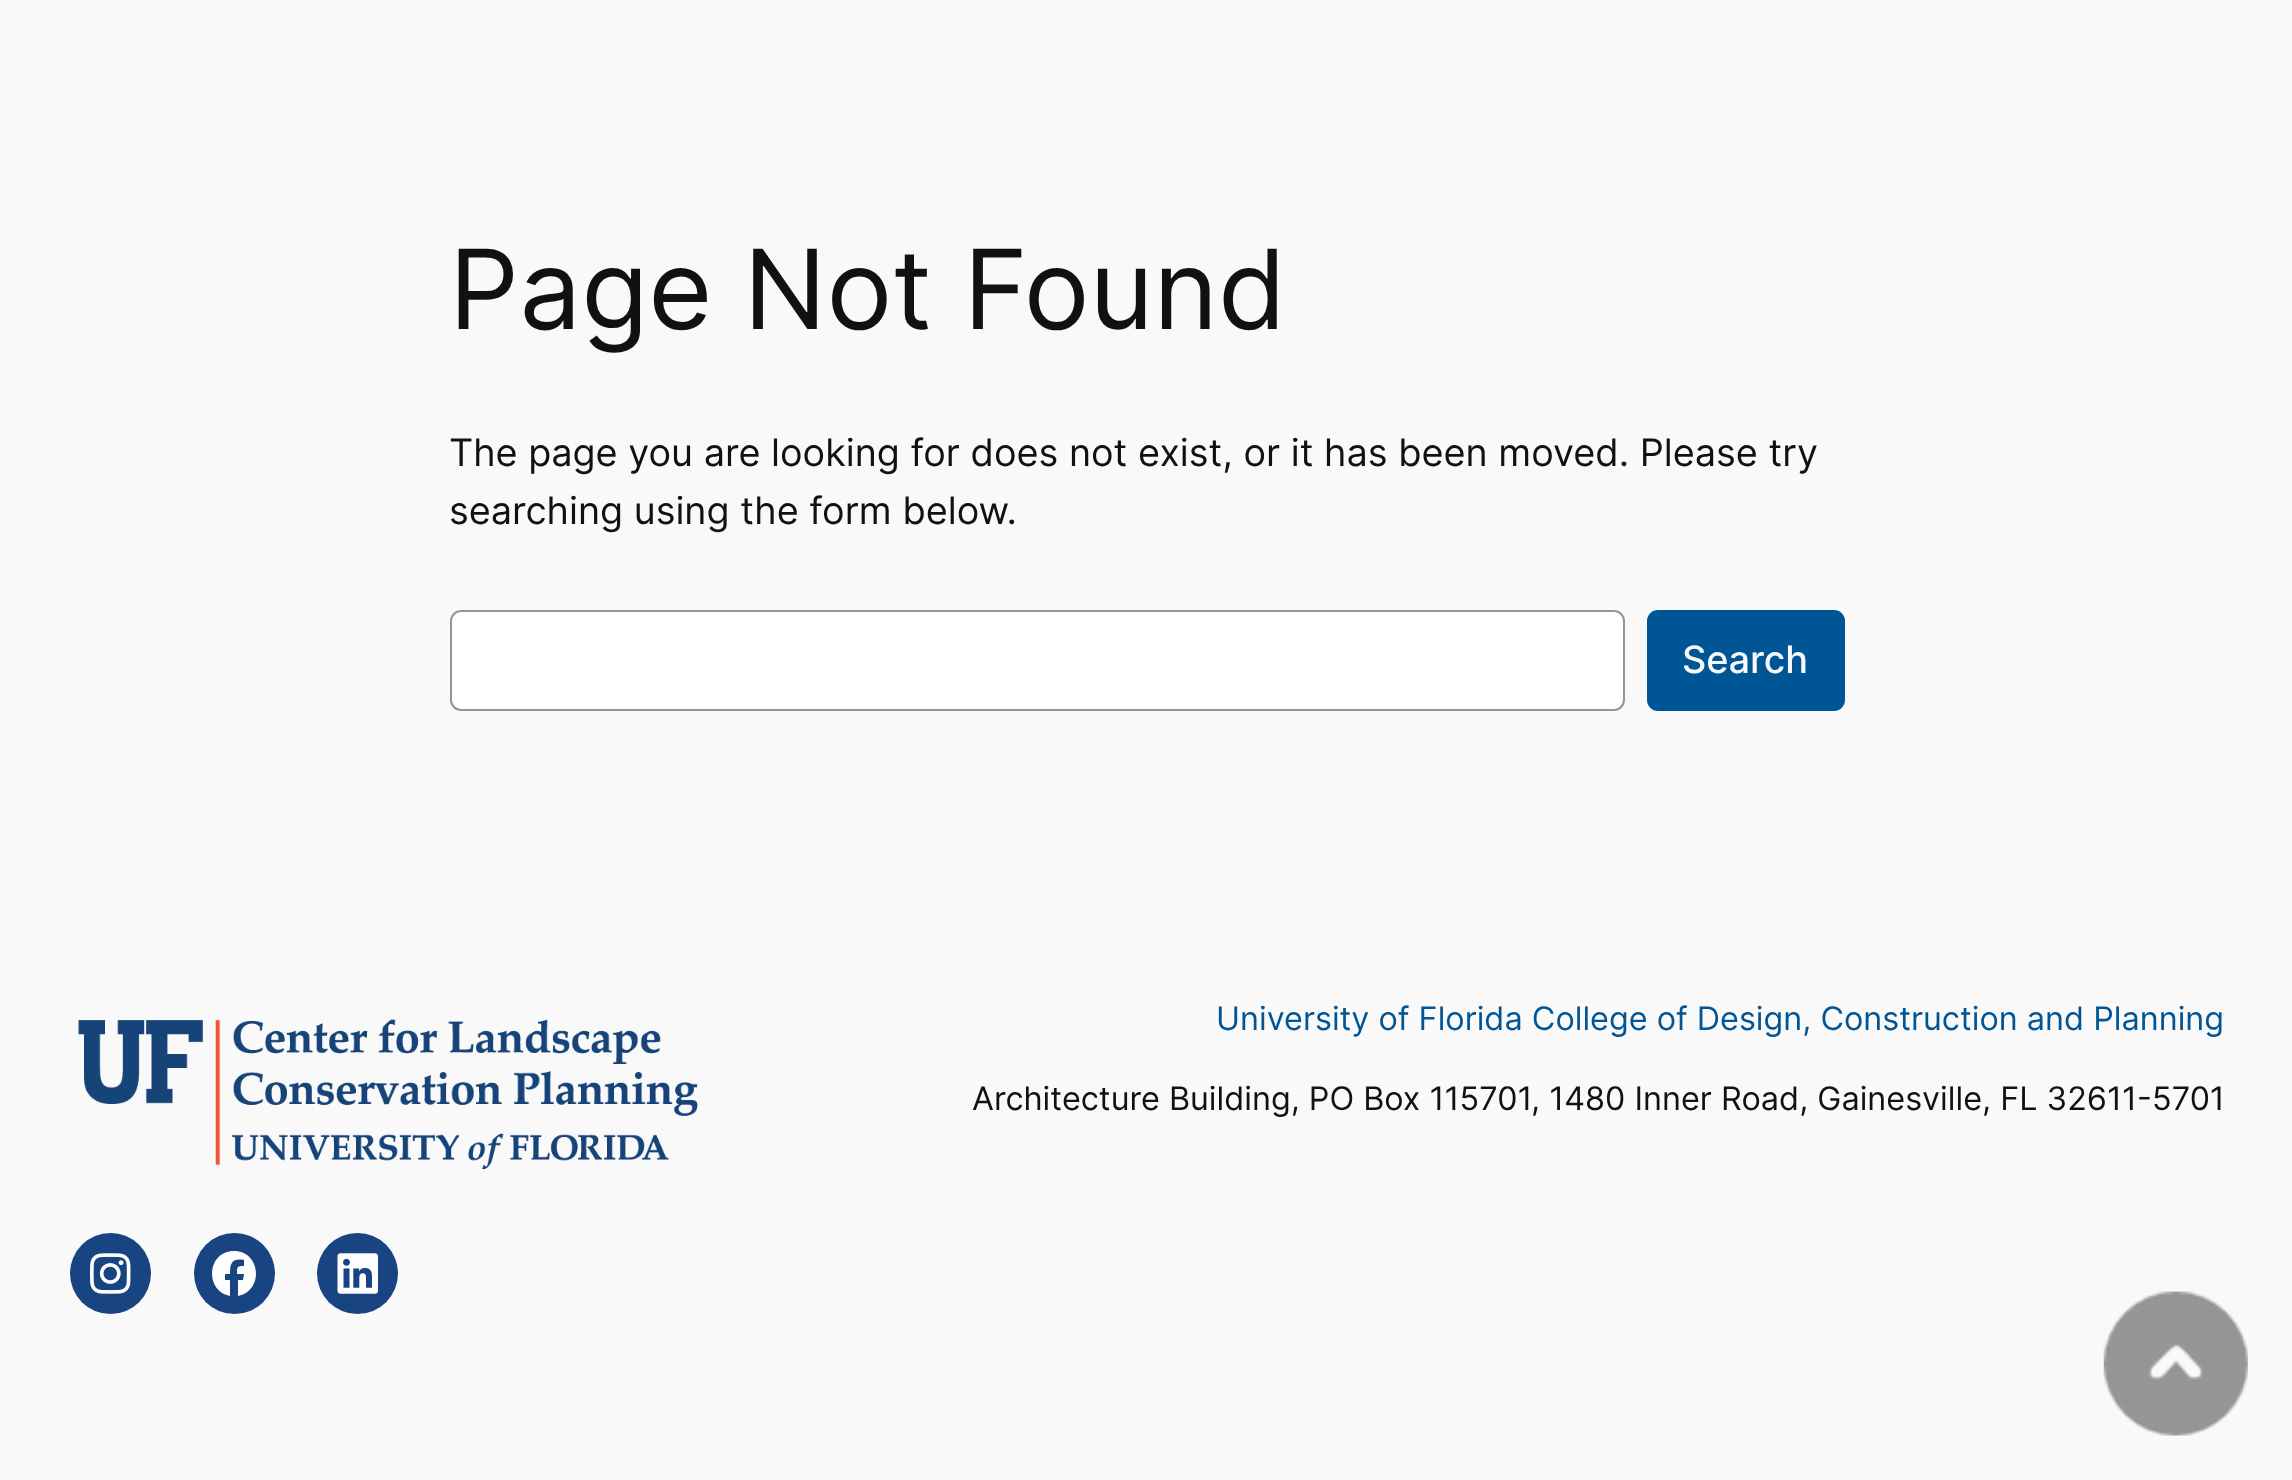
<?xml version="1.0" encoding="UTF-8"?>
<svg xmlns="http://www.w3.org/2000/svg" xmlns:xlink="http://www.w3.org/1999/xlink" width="2292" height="1480">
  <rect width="100%" height="100%" fill="#f9f9f9" />
  <rect x="451" y="611" width="1173" height="99" rx="10" fill="#ffffff" stroke="#949494" stroke-width="2" />
  <rect x="1647" y="610" width="198" height="101" rx="11" fill="#005596" />
  <image x="78" y="1019" width="620" height="151" xlink:href="image1.png" />
  <circle cx="110.5" cy="1273.5" r="40.5" fill="#184581" />
  <image x="90" y="1253" width="41" height="41" xlink:href="image2.png" />
  <circle cx="234.5" cy="1273.5" r="40.5" fill="#184581" />
  <path d="M 234 1251 c -27 0 -30 40 -4 45 v -16 h -5 v -6 h 5 c 0 -11 2 -16 14 -14 v 6 c -7 0 -7 1 -7 8 h 7 l -1 6 h -5 v 16 c 26 -5 23 -45 -4 -45 z" fill="#ffffff" />
  <circle cx="357.5" cy="1273.5" r="40.5" fill="#184581" />
  <image x="337" y="1253" width="41" height="41" xlink:href="image3.png" />
  <image x="2103" y="1291" width="145" height="145" xlink:href="image4.png" />
  <text x="449" y="329" style="font-family: Inter; font-size: 110.25px; fill: #111111">Page Not Found</text>
  <text x="449" y="466" style="font-family: Inter; font-size: 37.8px; fill: #111111">The page you are looking for does not exist, or it has been moved. Please try</text>
  <text x="449" y="524" style="font-family: Inter; font-size: 37.8px; fill: #111111">searching using the form below.</text>
  <text x="1682" y="673" style="font-family: Inter; font-size: 37.8px; font-weight: 500; fill: #f9f9f9">Search</text>
  <text x="1216" y="1030" style="font-family: Inter; font-size: 32.4px; fill: #005596">University of Florida College of Design, Construction and Planning</text>
  <text x="972" y="1110" style="font-family: Inter; font-size: 32.4px; fill: #111111">Architecture Building, PO Box 115701, 1480 Inner Road, Gainesville, FL 32611-5701</text>
</svg>
